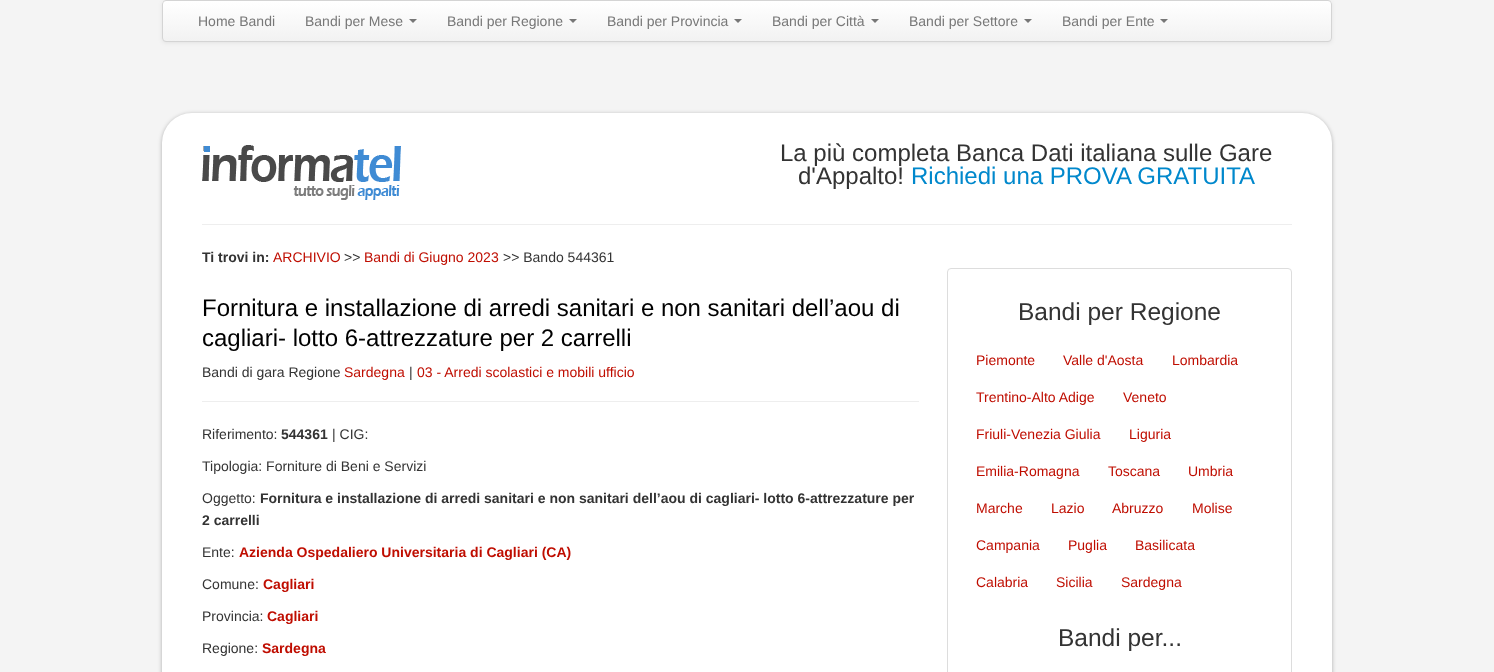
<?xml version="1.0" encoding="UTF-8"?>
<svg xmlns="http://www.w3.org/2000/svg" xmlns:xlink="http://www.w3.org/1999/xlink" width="1494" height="672">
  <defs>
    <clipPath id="clip1"><rect x="162" width="1170" height="42" rx="4" /></clipPath>
    <linearGradient id="g1" gradientUnits="userSpaceOnUse" x1="747" y1="1" x2="747" y2="41"><stop offset="0" stop-color="#ffffff" /><stop offset="1" stop-color="#f2f2f2" /></linearGradient>
  </defs>
  <rect width="100%" height="100%" fill="#f4f4f4" />
  <rect x="162" y="1" width="1170" height="42" rx="4" fill="#000000" fill-opacity="0.07" filter="blur(2px)" />
  <g clip-path="url(#clip1)">
    <rect x="162" y="1" width="1170" height="40" fill="url(#g1)" />
  </g>
  <rect x="162.5" y="0.5" width="1169" height="41" rx="3.5" fill="none" stroke="#d4d4d4" />
  <path d="M 409 19 h 8 l -4 4 z" fill="#777777" />
  <path d="M 569 19 h 8 l -4 4 z" fill="#777777" />
  <path d="M 734 19 h 8 l -4 4 z" fill="#777777" />
  <path d="M 871 19 h 8 l -4 4 z" fill="#777777" />
  <path d="M 1024 19 h 8 l -4 4 z" fill="#777777" />
  <path d="M 1160 19 h 8 l -4 4 z" fill="#777777" />
  <rect x="162" y="114" width="1170" height="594" rx="30" fill="#000000" fill-opacity="0.29" filter="blur(2px)" />
  <rect x="162" y="113" width="1170" height="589" rx="30" fill="#ffffff" />
  <image x="202" y="145" width="199" height="55" xlink:href="image1.png" />
  <rect x="202" y="224" width="1090" height="1" fill="#eeeeee" />
  <rect x="202" y="401" width="717" height="1" fill="#eeeeee" />
  <rect x="947.5" y="268.5" width="344" height="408" rx="3.5" fill="none" stroke="#dddddd" />
  <text x="198" y="26" style="font-family: Liberation Sans; font-size: 14px; fill: #777777">Home Bandi</text>
  <text x="305" y="26" style="font-family: Liberation Sans; font-size: 14px; fill: #777777">Bandi per Mese</text>
  <text x="447" y="26" style="font-family: Liberation Sans; font-size: 14px; fill: #777777">Bandi per Regione</text>
  <text x="607" y="26" style="font-family: Liberation Sans; font-size: 14px; fill: #777777">Bandi per Provincia</text>
  <text x="772" y="26" style="font-family: Liberation Sans; font-size: 14px; fill: #777777">Bandi per Città</text>
  <text x="909" y="26" style="font-family: Liberation Sans; font-size: 14px; fill: #777777">Bandi per Settore</text>
  <text x="1062" y="26" style="font-family: Liberation Sans; font-size: 14px; fill: #777777">Bandi per Ente</text>
  <text x="780" y="161" style="font-family: Liberation Sans; font-size: 24px; fill: #333333">La più completa Banca Dati italiana sulle Gare</text>
  <text x="798" y="184" style="font-family: Liberation Sans; font-size: 24px; fill: #333333">d'Appalto!</text>
  <text x="911" y="184" style="font-family: Liberation Sans; font-size: 24px; fill: #0088cc">Richiedi una PROVA GRATUITA</text>
  <text x="202" y="262" style="font-family: Liberation Sans; font-size: 14px; font-weight: bold; fill: #333333">Ti trovi in:</text>
  <text x="273" y="262" style="font-family: Liberation Sans; font-size: 14px; fill: #bf0d00">ARCHIVIO</text>
  <text x="344" y="262" style="font-family: Liberation Sans; font-size: 14px; fill: #333333">&gt;&gt;</text>
  <text x="364" y="262" style="font-family: Liberation Sans; font-size: 14px; fill: #bf0d00">Bandi di Giugno 2023</text>
  <text x="503" y="262" style="font-family: Liberation Sans; font-size: 14px; fill: #333333">&gt;&gt; Bando 544361</text>
  <text x="202" y="316" style="font-family: Liberation Sans; font-size: 24px; fill: #000000">Fornitura e installazione di arredi sanitari e non sanitari dell’aou di</text>
  <text x="202" y="346" style="font-family: Liberation Sans; font-size: 24px; fill: #000000">cagliari- lotto 6-attrezzature per 2 carrelli</text>
  <text x="202" y="377" style="font-family: Liberation Sans; font-size: 14px; fill: #333333">Bandi di gara Regione</text>
  <text x="344" y="377" style="font-family: Liberation Sans; font-size: 14px; fill: #bf0d00">Sardegna</text>
  <text x="409" y="377" style="font-family: Liberation Sans; font-size: 14px; fill: #333333">|</text>
  <text x="417" y="377" style="font-family: Liberation Sans; font-size: 14px; fill: #bf0d00">03 - Arredi scolastici e mobili ufficio</text>
  <text x="202" y="439" style="font-family: Liberation Sans; font-size: 14px; fill: #333333">Riferimento:</text>
  <text x="281" y="439" style="font-family: Liberation Sans; font-size: 14px; font-weight: bold; fill: #333333">544361</text>
  <text x="332" y="439" style="font-family: Liberation Sans; font-size: 14px; fill: #333333">| CIG:</text>
  <text x="202" y="471" style="font-family: Liberation Sans; font-size: 14px; fill: #333333">Tipologia: Forniture di Beni e Servizi</text>
  <text x="202" y="503" style="font-family: Liberation Sans; font-size: 14px; fill: #333333">Oggetto:</text>
  <text x="260" y="503" style="font-family: Liberation Sans; font-size: 14px; font-weight: bold; fill: #333333">Fornitura e installazione di arredi sanitari e non sanitari dell’aou di cagliari- lotto 6-attrezzature per</text>
  <text x="202" y="525" style="font-family: Liberation Sans; font-size: 14px; font-weight: bold; fill: #333333">2 carrelli</text>
  <text x="202" y="557" style="font-family: Liberation Sans; font-size: 14px; fill: #333333">Ente:</text>
  <text x="239" y="557" style="font-family: Liberation Sans; font-size: 14px; font-weight: bold; fill: #bf0d00">Azienda Ospedaliero Universitaria di Cagliari (CA)</text>
  <text x="202" y="589" style="font-family: Liberation Sans; font-size: 14px; fill: #333333">Comune:</text>
  <text x="263" y="589" style="font-family: Liberation Sans; font-size: 14px; font-weight: bold; fill: #bf0d00">Cagliari</text>
  <text x="202" y="621" style="font-family: Liberation Sans; font-size: 14px; fill: #333333">Provincia:</text>
  <text x="267" y="621" style="font-family: Liberation Sans; font-size: 14px; font-weight: bold; fill: #bf0d00">Cagliari</text>
  <text x="202" y="653" style="font-family: Liberation Sans; font-size: 14px; fill: #333333">Regione:</text>
  <text x="262" y="653" style="font-family: Liberation Sans; font-size: 14px; font-weight: bold; fill: #bf0d00">Sardegna</text>
  <text x="1018" y="320" style="font-family: Liberation Sans; font-size: 24.5px; fill: #333333">Bandi per Regione</text>
  <text x="976" y="365" style="font-family: Liberation Sans; font-size: 14px; fill: #bf0d00">Piemonte</text>
  <text x="1063" y="365" style="font-family: Liberation Sans; font-size: 14px; fill: #bf0d00">Valle d'Aosta</text>
  <text x="1172" y="365" style="font-family: Liberation Sans; font-size: 14px; fill: #bf0d00">Lombardia</text>
  <text x="976" y="402" style="font-family: Liberation Sans; font-size: 14px; fill: #bf0d00">Trentino-Alto Adige</text>
  <text x="1123" y="402" style="font-family: Liberation Sans; font-size: 14px; fill: #bf0d00">Veneto</text>
  <text x="976" y="439" style="font-family: Liberation Sans; font-size: 14px; fill: #bf0d00">Friuli-Venezia Giulia</text>
  <text x="1129" y="439" style="font-family: Liberation Sans; font-size: 14px; fill: #bf0d00">Liguria</text>
  <text x="976" y="476" style="font-family: Liberation Sans; font-size: 14px; fill: #bf0d00">Emilia-Romagna</text>
  <text x="1108" y="476" style="font-family: Liberation Sans; font-size: 14px; fill: #bf0d00">Toscana</text>
  <text x="1188" y="476" style="font-family: Liberation Sans; font-size: 14px; fill: #bf0d00">Umbria</text>
  <text x="976" y="513" style="font-family: Liberation Sans; font-size: 14px; fill: #bf0d00">Marche</text>
  <text x="1051" y="513" style="font-family: Liberation Sans; font-size: 14px; fill: #bf0d00">Lazio</text>
  <text x="1112" y="513" style="font-family: Liberation Sans; font-size: 14px; fill: #bf0d00">Abruzzo</text>
  <text x="1192" y="513" style="font-family: Liberation Sans; font-size: 14px; fill: #bf0d00">Molise</text>
  <text x="976" y="550" style="font-family: Liberation Sans; font-size: 14px; fill: #bf0d00">Campania</text>
  <text x="1068" y="550" style="font-family: Liberation Sans; font-size: 14px; fill: #bf0d00">Puglia</text>
  <text x="1135" y="550" style="font-family: Liberation Sans; font-size: 14px; fill: #bf0d00">Basilicata</text>
  <text x="976" y="587" style="font-family: Liberation Sans; font-size: 14px; fill: #bf0d00">Calabria</text>
  <text x="1056" y="587" style="font-family: Liberation Sans; font-size: 14px; fill: #bf0d00">Sicilia</text>
  <text x="1121" y="587" style="font-family: Liberation Sans; font-size: 14px; fill: #bf0d00">Sardegna</text>
  <text x="1058" y="646" style="font-family: Liberation Sans; font-size: 24.5px; fill: #333333">Bandi per...</text>
</svg>
